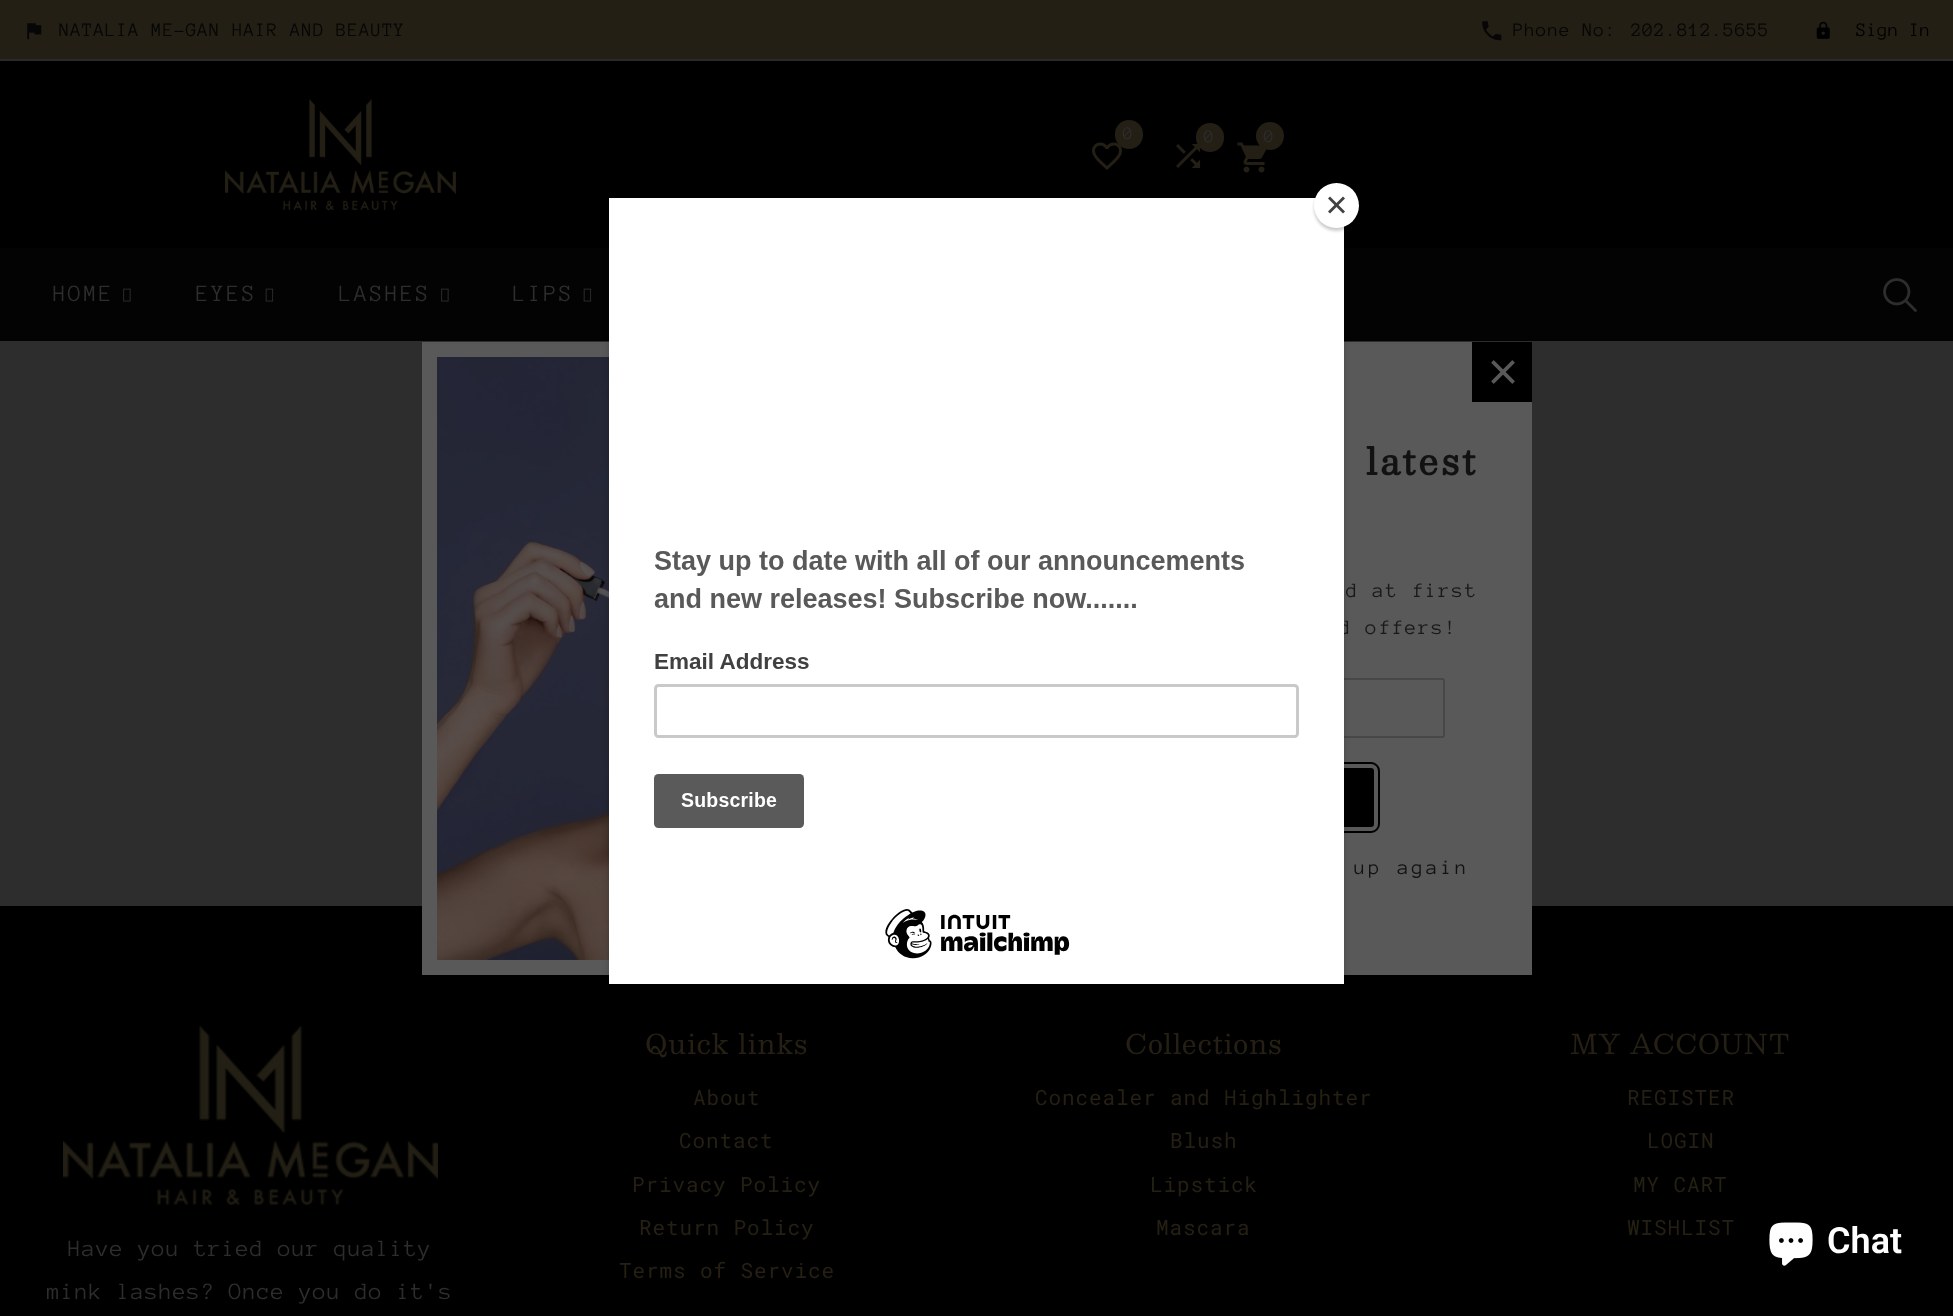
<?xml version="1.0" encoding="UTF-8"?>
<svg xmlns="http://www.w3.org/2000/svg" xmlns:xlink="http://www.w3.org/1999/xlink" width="1953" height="1316">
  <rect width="100%" height="100%" fill="#2d2d2d" />
  <rect y="248" width="1953" height="93" fill="#030303" />
  <rect width="1953" height="59" fill="#231f15" />
  <rect y="59" width="1953" height="2" fill="#2a2a2a" />
  <image x="27" y="23" width="15" height="17" xlink:href="image1.png" />
  <image x="1482" y="21" width="20" height="20" xlink:href="image2.png" />
  <image x="1816" y="21" width="14" height="18" xlink:href="image3.png" />
  <rect y="61" width="1953" height="187" fill="#000000" />
  <image x="225" y="99" width="231" height="111" xlink:href="image4.png" />
  <image x="1092" y="142" width="30" height="28" xlink:href="image5.png" />
  <rect x="1115" y="120" width="28" height="29" rx="14" fill="#231f15" />
  <image x="1176" y="144" width="25" height="24" xlink:href="image6.png" />
  <rect x="1196" y="123" width="28" height="29" rx="14" fill="#231f15" />
  <image x="1237" y="142" width="30" height="31" xlink:href="image7.png" />
  <circle cx="1270" cy="136" r="14" fill="#231f15" />
  <image x="123" y="288" width="8" height="14" xlink:href="image8.png" />
  <image x="265" y="288" width="9" height="14" xlink:href="image9.png" />
  <image x="441" y="288" width="8" height="14" xlink:href="image8.png" />
  <image x="583" y="288" width="9" height="14" xlink:href="image9.png" />
  <image x="1883" y="278" width="34" height="34" xlink:href="image10.png" />
  <rect y="906" width="1953" height="410" fill="#000000" />
  <rect x="422" y="342" width="1110" height="633" fill="#595959" />
  <image x="437" y="357" width="172" height="603" xlink:href="image11.png" />
  <rect x="1050" y="679" width="394" height="58" rx="2" fill="none" stroke="#474747" stroke-width="2" />
  <rect x="1119" y="768" width="255" height="59" rx="3" fill="#000000" />
  <rect x="1114" y="763" width="265" height="69" rx="8" fill="none" stroke="#000000" stroke-width="2" />
  <rect x="1472" y="342" width="60" height="60" fill="#000000" />
  <image x="1491" y="360" width="24" height="24" xlink:href="image12.png" />
  <image x="63" y="1026" width="375" height="179" xlink:href="image13.png" />
  <rect x="609" y="201" width="735" height="786" fill="#000000" fill-opacity="0.2" filter="blur(3px)" />
  <image x="1769" y="1222" width="44" height="44" xlink:href="image15.png" />
  <text x="59" y="36" style="font-family: Anonymous Pro; font-size: 19.5px; letter-spacing: 0.9px; fill: #060606">NATALIA ME-GAN HAIR AND BEAUTY</text>
  <text x="1513" y="36" style="font-family: Anonymous Pro; font-size: 19.5px; letter-spacing: 0.9px; fill: #060606">Phone No:</text>
  <text x="1631" y="36" style="font-family: Anonymous Pro; font-size: 19.5px; letter-spacing: 0.9px; fill: #060606">202.812.5655</text>
  <text x="1856" y="36" style="font-family: Anonymous Pro; font-size: 19.5px; fill: #000000">Sign In</text>
  <text x="1123" y="139" style="font-family: Anonymous Pro; font-size: 18px; letter-spacing: 0.9px; fill: #2d2d2d">0</text>
  <text x="1204" y="142" style="font-family: Anonymous Pro; font-size: 18px; letter-spacing: 0.9px; fill: #2d2d2d">0</text>
  <text x="1264" y="142" style="font-family: Anonymous Pro; font-size: 18px; letter-spacing: 0.9px; fill: #2d2d2d">0</text>
  <text x="53" y="301" style="font-family: Anonymous Pro; font-size: 24px; letter-spacing: 2.25px; fill: #2d2d2d">HOME</text>
  <text x="196" y="301" style="font-family: Anonymous Pro; font-size: 24px; letter-spacing: 2.25px; fill: #2d2d2d">EYES</text>
  <text x="339" y="301" style="font-family: Anonymous Pro; font-size: 24px; letter-spacing: 2.25px; fill: #2d2d2d">LASHES</text>
  <text x="513" y="301" style="font-family: Anonymous Pro; font-size: 24px; letter-spacing: 2.25px; fill: #2d2d2d">LIPS</text>
  <text x="1366" y="475" style="font-family: Besley; font-size: 36px; font-weight: bold; letter-spacing: 3px; fill: #121212">latest</text>
  <text x="1346" y="597" style="font-family: Anonymous Pro; font-size: 21px; letter-spacing: 1.75px; fill: #191919">d at first</text>
  <text x="1339" y="634" style="font-family: Anonymous Pro; font-size: 21px; letter-spacing: 1.75px; fill: #191919">d offers!</text>
  <text x="1354" y="874" style="font-family: Anonymous Pro; font-size: 21px; letter-spacing: 3px; fill: #121212">up again</text>
  <text x="645" y="1054" style="font-family: Besley; font-size: 27px; letter-spacing: 0.9px; fill: #252013">Quick links</text>
  <text x="693" y="1105" style="font-family: Roboto Mono; font-size: 21px; letter-spacing: 0.9px; fill: #252013">About</text>
  <text x="679" y="1148" style="font-family: Roboto Mono; font-size: 21px; letter-spacing: 0.9px; fill: #252013">Contact</text>
  <text x="632" y="1192" style="font-family: Roboto Mono; font-size: 21px; letter-spacing: 0.9px; fill: #252013">Privacy Policy</text>
  <text x="639" y="1235" style="font-family: Roboto Mono; font-size: 21px; letter-spacing: 0.9px; fill: #252013">Return Policy</text>
  <text x="619" y="1278" style="font-family: Roboto Mono; font-size: 21px; letter-spacing: 0.9px; fill: #252013">Terms of Service</text>
  <text x="1125" y="1054" style="font-family: Besley; font-size: 27px; letter-spacing: 0.9px; fill: #252013">Collections</text>
  <text x="1035" y="1105" style="font-family: Roboto Mono; font-size: 21px; letter-spacing: 0.9px; fill: #252013">Concealer and Highlighter</text>
  <text x="1170" y="1148" style="font-family: Roboto Mono; font-size: 21px; letter-spacing: 0.9px; fill: #252013">Blush</text>
  <text x="1150" y="1192" style="font-family: Roboto Mono; font-size: 21px; letter-spacing: 0.9px; fill: #252013">Lipstick</text>
  <text x="1156" y="1235" style="font-family: Roboto Mono; font-size: 21px; letter-spacing: 0.9px; fill: #252013">Mascara</text>
  <text x="1570" y="1054" style="font-family: Besley; font-size: 27px; letter-spacing: 0.9px; fill: #252013">MY ACCOUNT</text>
  <text x="1627" y="1105" style="font-family: Roboto Mono; font-size: 21px; letter-spacing: 0.9px; fill: #252013">REGISTER</text>
  <text x="1647" y="1148" style="font-family: Roboto Mono; font-size: 21px; letter-spacing: 0.9px; fill: #252013">LOGIN</text>
  <text x="1633" y="1192" style="font-family: Roboto Mono; font-size: 21px; letter-spacing: 0.9px; fill: #252013">MY CART</text>
  <text x="1627" y="1235" style="font-family: Roboto Mono; font-size: 21px; letter-spacing: 0.9px; fill: #252013">WISHLIST</text>
  <text x="68" y="1256" style="font-family: Anonymous Pro; font-size: 24px; letter-spacing: 0.9px; fill: #2d2d2d">Have you tried our quality</text>
  <text x="47" y="1299" style="font-family: Anonymous Pro; font-size: 24px; letter-spacing: 0.9px; fill: #2d2d2d">mink lashes? Once you do it's</text>
  <image x="609" y="198" width="735" height="786" xlink:href="image14.png" />
  <rect x="1314" y="186" width="45" height="45" rx="22.5" fill="#000000" fill-opacity="0.2" filter="blur(1.5px)" />
  <circle cx="1336.5" cy="205.5" r="22.5" fill="#ffffff" />
  <path d="M 1343 196.5 l 2 2 l -15 15 l -2 -2 z" fill="#414141" />
  <path d="M 1328 198.5 l 2 -2 l 15 15 l -2 2 z" fill="#414141" />
  <text x="1827" y="1253" style="font-family: Roboto; font-size: 36px; font-weight: 600; fill: #ffffff">Chat</text>
</svg>
